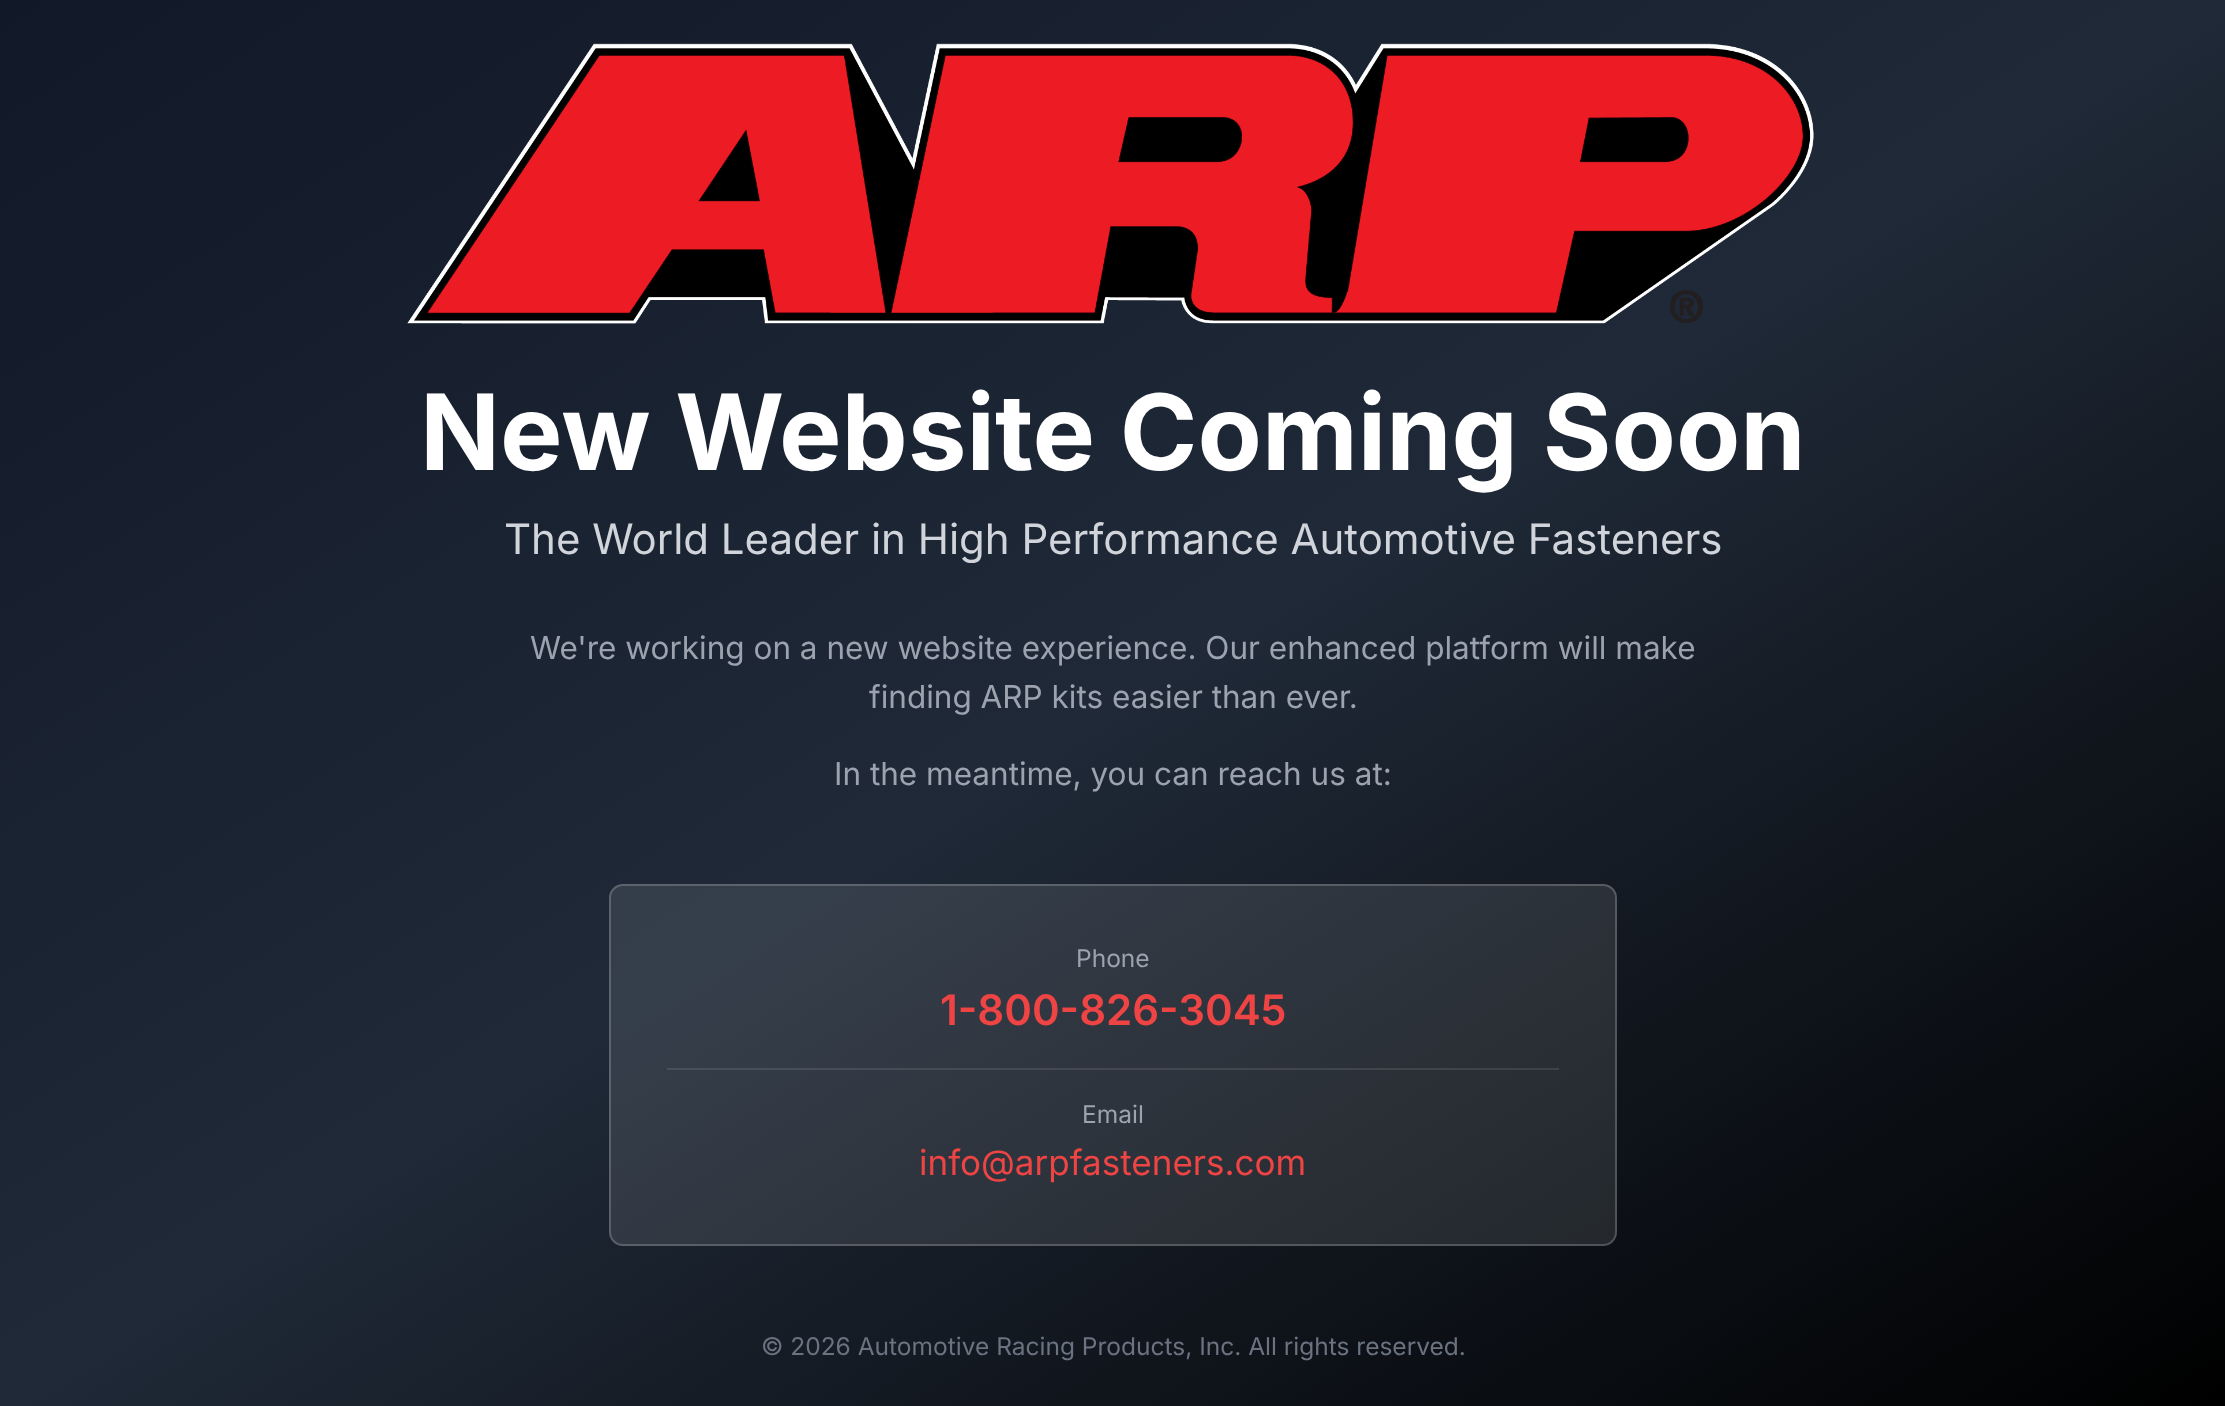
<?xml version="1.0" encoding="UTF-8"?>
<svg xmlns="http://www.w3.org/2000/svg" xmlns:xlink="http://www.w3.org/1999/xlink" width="2225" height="1406">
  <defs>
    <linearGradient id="g1" gradientUnits="userSpaceOnUse" x1="478" y1="-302" x2="1748" y2="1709"><stop offset="0" stop-color="#111827" /><stop offset="0.5" stop-color="#1f2937" /><stop offset="1" stop-color="#000000" /></linearGradient>
  </defs>
  <rect width="100%" height="100%" fill="#ffffff" />
  <rect width="2225" height="1406" fill="url(#g1)" />
  <image x="407" y="43" width="1407" height="281" xlink:href="image1.png" />
  <rect x="609" y="884" width="1008" height="362" rx="14" fill="#ffffff" fill-opacity="0.1" />
  <rect x="610" y="885" width="1006" height="360" rx="13" fill="none" stroke="#ffffff" stroke-opacity="0.2" stroke-width="2" />
  <rect x="667" y="1068" width="892" height="2" fill="#ffffff" fill-opacity="0.1" />
  <text x="420" y="470" style="font-family: Inter; font-size: 105px; font-weight: bold; fill: #ffffff">New Website Coming Soon</text>
  <text x="504" y="554" style="font-family: Inter; font-size: 42px; fill: #d1d5db">The World Leader in High Performance Automotive Fasteners</text>
  <text x="530" y="659" style="font-family: Inter; font-size: 31.5px; fill: #9ca3af">We're working on a new website experience. Our enhanced platform will make</text>
  <text x="869" y="708" style="font-family: Inter; font-size: 31.5px; fill: #9ca3af">finding ARP kits easier than ever.</text>
  <text x="834" y="785" style="font-family: Inter; font-size: 31.5px; fill: #9ca3af">In the meantime, you can reach us at:</text>
  <text x="1076" y="967" style="font-family: Inter; font-size: 24.5px; fill: #9ca3af">Phone</text>
  <text x="940" y="1025" style="font-family: Inter; font-size: 42px; font-weight: 600; fill: #ef4444">1-800-826-3045</text>
  <text x="1082" y="1123" style="font-family: Inter; font-size: 24.5px; fill: #9ca3af">Email</text>
  <text x="919" y="1175" style="font-family: Inter; font-size: 35px; fill: #ef4444">info@arpfasteners.com</text>
  <text x="761" y="1355" style="font-family: Inter; font-size: 24.5px; fill: #6b7280">© 2026 Automotive Racing Products, Inc. All rights reserved.</text>
</svg>
